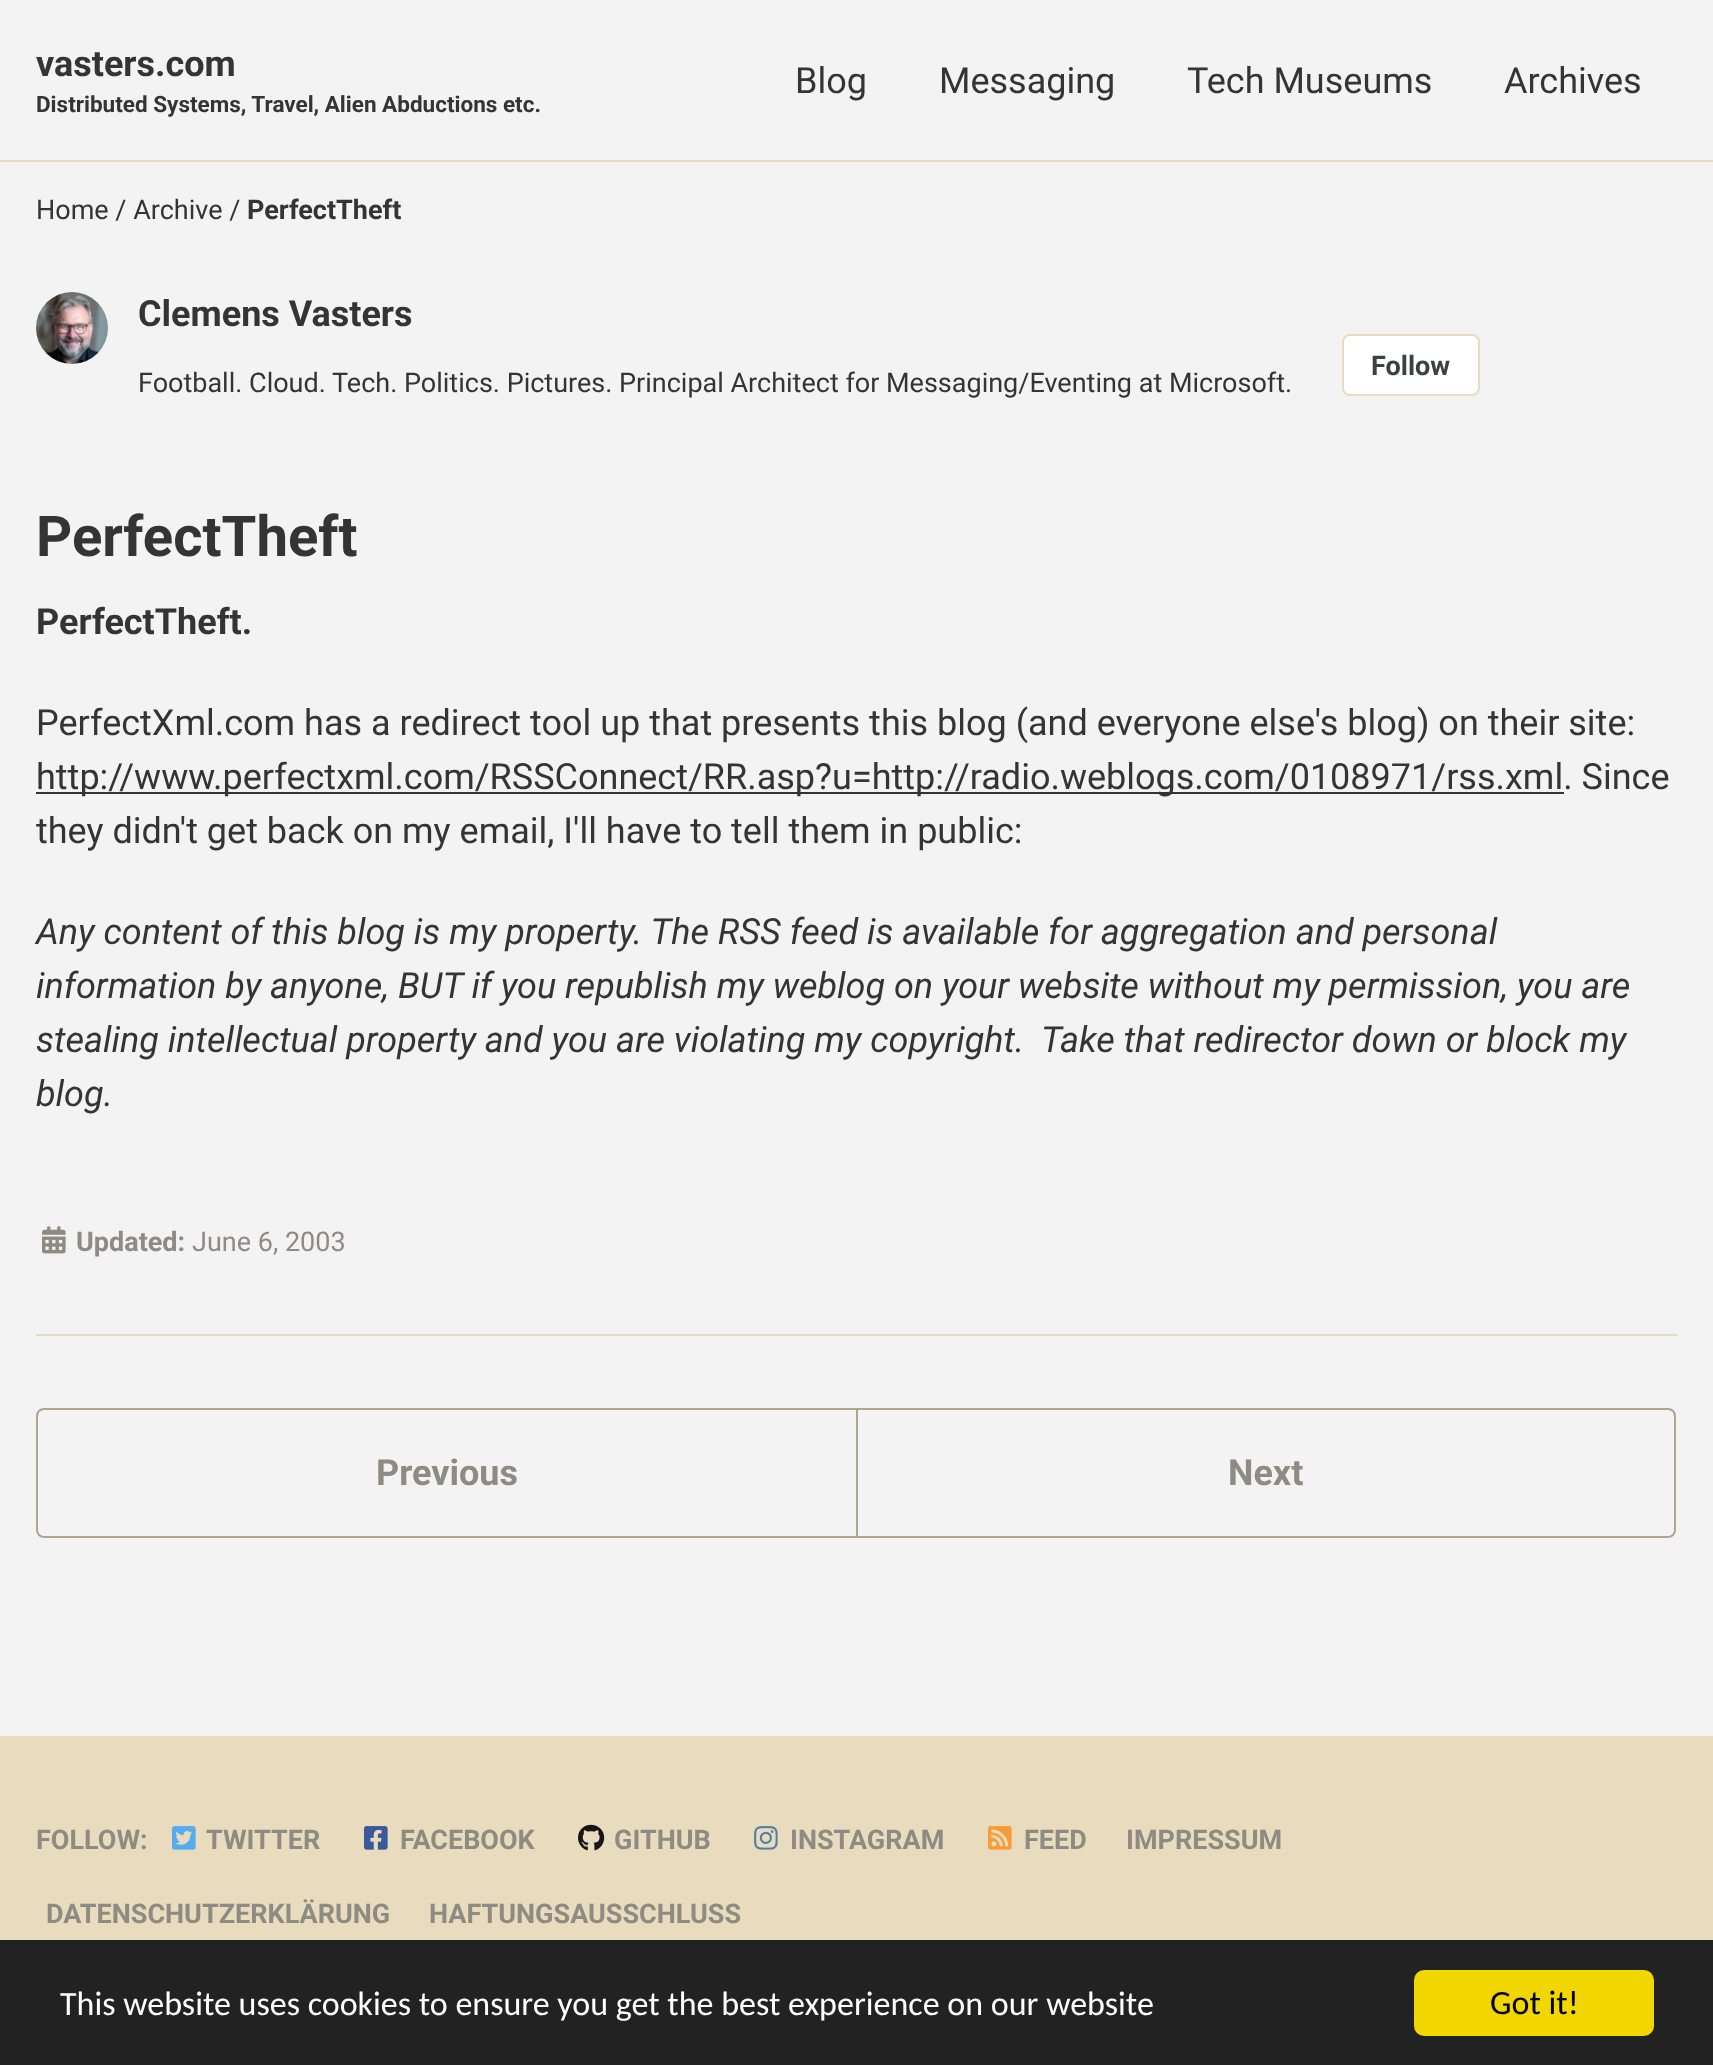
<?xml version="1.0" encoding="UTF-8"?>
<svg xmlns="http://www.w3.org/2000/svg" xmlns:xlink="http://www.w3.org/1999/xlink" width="1713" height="2065">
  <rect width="100%" height="100%" fill="#f3f3f3" />
  <rect y="160" width="1713" height="2" fill="#e9dcbe" />
  <image x="36" y="292" width="72" height="72" xlink:href="image1.png" />
  <rect x="1343" y="335" width="136" height="60" rx="7" fill="#ffffff" stroke="#e9dcbe" stroke-width="2" />
  <rect x="36" y="792" width="1528" height="2" fill="#343434" />
  <image x="42" y="1226" width="24" height="28" xlink:href="image2.png" />
  <rect x="36" y="1334" width="1642" height="2" fill="#e9dcbe" />
  <path d="M 44 1409 h 813 v 128 h -813 c -4 0 -7 -3 -7 -7 v -114 c 0 -4 3 -7 7 -7 z" fill="none" stroke="#afa58f" stroke-width="2" />
  <path d="M 857 1409 h 811 c 4 0 7 3 7 7 v 114 c 0 4 -3 7 -7 7 h -811 z" fill="none" stroke="#afa58f" stroke-width="2" />
  <rect y="1736" width="1713" height="204" fill="#e9dcbe" />
  <image x="172" y="1826" width="24" height="24" xlink:href="image3.png" />
  <image x="364" y="1826" width="24" height="24" xlink:href="image4.png" />
  <image x="578" y="1824" width="27" height="27" xlink:href="image5.png" />
  <image x="754" y="1826" width="24" height="24" xlink:href="image6.png" />
  <image x="988" y="1826" width="24" height="24" xlink:href="image7.png" />
  <rect y="1940" width="1713" height="125" fill="#222222" />
  <rect x="1414" y="1970" width="240" height="66" rx="10" fill="#f1d600" />
  <text x="36" y="76" style="font-family: Roboto; font-size: 36px; font-weight: bold; fill: #343434">vasters.com</text>
  <text x="36" y="112" style="font-family: Roboto; font-size: 22.5px; font-weight: bold; fill: #343434">Distributed Systems, Travel, Alien Abductions etc.</text>
  <text x="795" y="93" style="font-family: Roboto; font-size: 36px; fill: #343434">Blog</text>
  <text x="939" y="93" style="font-family: Roboto; font-size: 36px; fill: #343434">Messaging</text>
  <text x="1187" y="93" style="font-family: Roboto; font-size: 36px; fill: #343434">Tech Museums</text>
  <text x="1504" y="93" style="font-family: Roboto; font-size: 36px; fill: #343434">Archives</text>
  <text x="36" y="219" style="font-family: Roboto; font-size: 27px; fill: #343434">Home / Archive /</text>
  <text x="247" y="219" style="font-family: Roboto; font-size: 27px; font-weight: bold; fill: #343434">PerfectTheft</text>
  <text x="138" y="326" style="font-family: Roboto; font-size: 36px; font-weight: bold; fill: #343434">Clemens Vasters</text>
  <text x="138" y="392" style="font-family: Roboto; font-size: 27px; fill: #343434">Football. Cloud. Tech. Politics. Pictures. Principal Architect for Messaging/Eventing at Microsoft.</text>
  <text x="1371" y="375" style="font-family: Roboto; font-size: 27px; font-weight: bold; fill: #3d4144">Follow</text>
  <text x="36" y="556" style="font-family: Roboto; font-size: 56.25px; font-weight: bold; fill: #343434">PerfectTheft</text>
  <text x="36" y="634" style="font-family: Roboto; font-size: 36px; font-weight: bold; fill: #343434">PerfectTheft.</text>
  <text x="36" y="735" style="font-family: Roboto; font-size: 36px; fill: #343434">PerfectXml.com has a redirect tool up that presents this blog (and everyone else's blog) on their site:</text>
  <text x="36" y="789" style="font-family: Roboto; font-size: 36px; fill: #343434">http://www.perfectxml.com/RSSConnect/RR.asp?u=http://radio.weblogs.com/0108971/rss.xml. Since</text>
  <text x="36" y="843" style="font-family: Roboto; font-size: 36px; fill: #343434">they didn't get back on my email, I'll have to tell them in public:</text>
  <text x="36" y="944" style="font-family: Roboto; font-size: 36px; font-style: italic; fill: #343434">Any content of this blog is my property. The RSS feed is available for aggregation and personal</text>
  <text x="36" y="998" style="font-family: Roboto; font-size: 36px; font-style: italic; fill: #343434">information by anyone, BUT if you republish my weblog on your website without my permission, you are</text>
  <text x="36" y="1052" style="font-family: Roboto; font-size: 36px; font-style: italic; fill: #343434" xml:space="preserve">stealing intellectual property and you are violating my copyright.  Take that redirector down or block my</text>
  <text x="36" y="1106" style="font-family: Roboto; font-size: 36px; font-style: italic; fill: #343434">blog.</text>
  <text x="76" y="1251" style="font-family: Roboto; font-size: 27px; font-weight: bold; fill: #8e8b82">Updated:</text>
  <text x="192" y="1251" style="font-family: Roboto; font-size: 27px; fill: #8e8b82">June 6, 2003</text>
  <text x="376" y="1485" style="font-family: Roboto; font-size: 36px; font-weight: bold; fill: #8e8b82">Previous</text>
  <text x="1228" y="1485" style="font-family: Roboto; font-size: 36px; font-weight: bold; fill: #8e8b82">Next</text>
  <text x="36" y="1849" style="font-family: Roboto; font-size: 27px; font-weight: bold; fill: #8e8b82">FOLLOW:</text>
  <text x="206" y="1849" style="font-family: Roboto; font-size: 27px; font-weight: bold; fill: #8e8b82">TWITTER</text>
  <text x="400" y="1849" style="font-family: Roboto; font-size: 27px; font-weight: bold; fill: #8e8b82">FACEBOOK</text>
  <text x="614" y="1849" style="font-family: Roboto; font-size: 27px; font-weight: bold; fill: #8e8b82">GITHUB</text>
  <text x="790" y="1849" style="font-family: Roboto; font-size: 27px; font-weight: bold; fill: #8e8b82">INSTAGRAM</text>
  <text x="1024" y="1849" style="font-family: Roboto; font-size: 27px; font-weight: bold; fill: #8e8b82">FEED</text>
  <text x="1126" y="1849" style="font-family: Roboto; font-size: 27px; font-weight: bold; fill: #8e8b82">IMPRESSUM</text>
  <text x="46" y="1923" style="font-family: Roboto; font-size: 27px; font-weight: bold; fill: #8e8b82">DATENSCHUTZERKLÄRUNG</text>
  <text x="429" y="1923" style="font-family: Roboto; font-size: 27px; font-weight: bold; fill: #8e8b82">HAFTUNGSAUSSCHLUSS</text>
  <text x="60" y="2015" style="font-family: Carlito; font-size: 34px; fill: #ffffff">This website uses cookies to ensure you get the best experience on our website</text>
  <text x="1490" y="2014" style="font-family: Carlito; font-size: 34px; fill: #000000">Got it!</text>
</svg>
